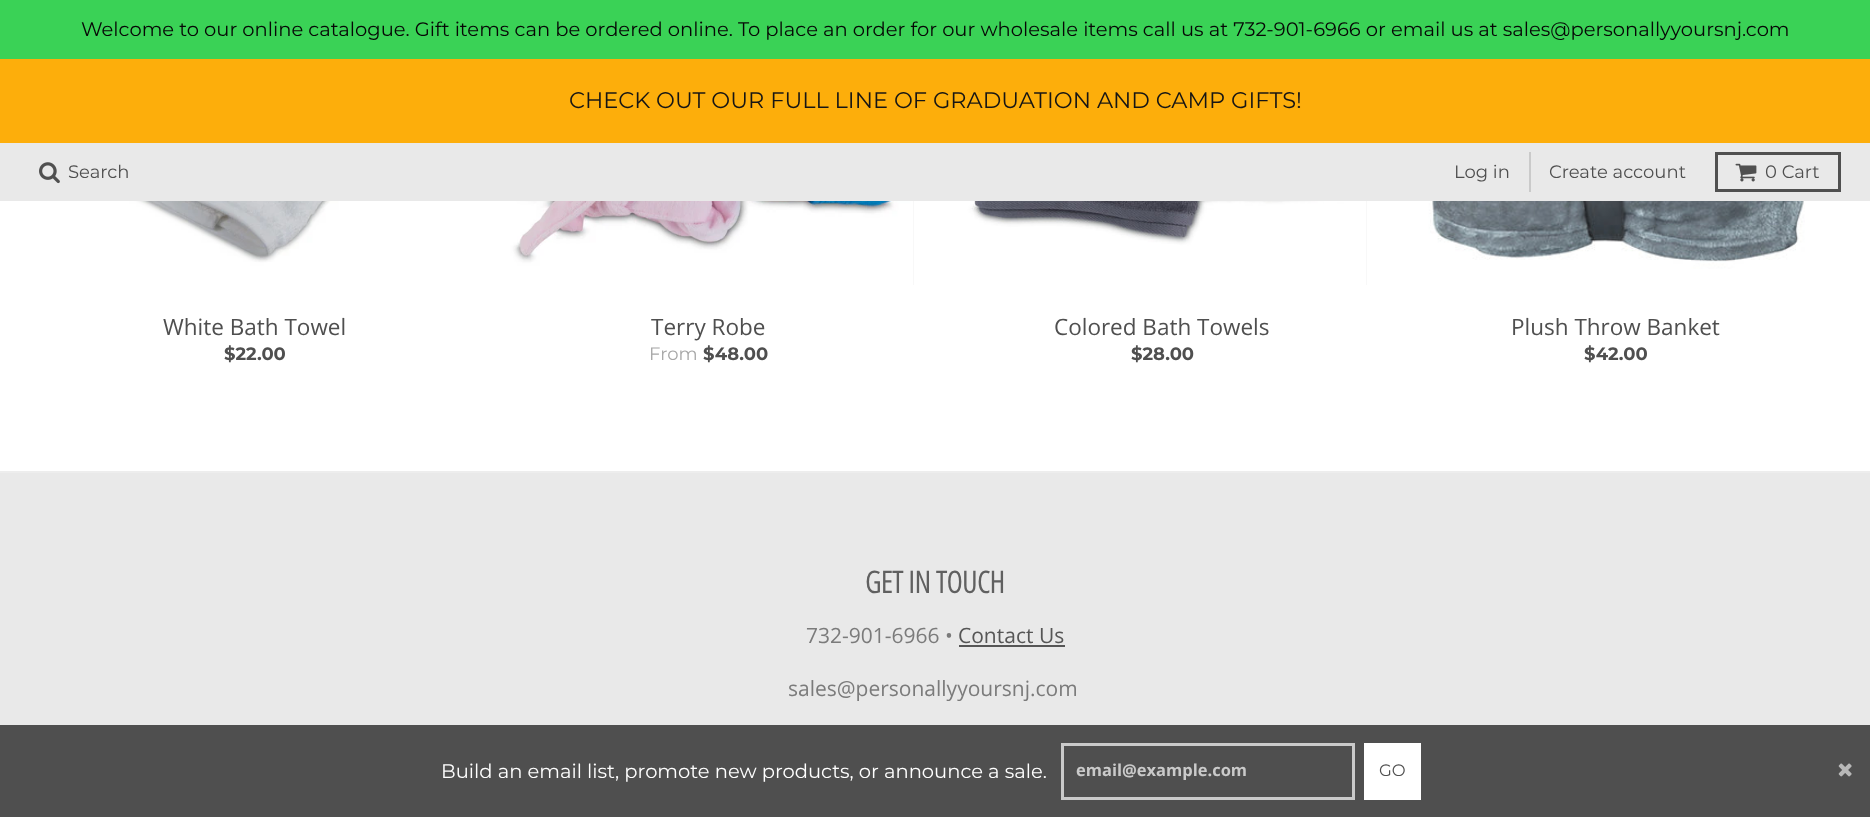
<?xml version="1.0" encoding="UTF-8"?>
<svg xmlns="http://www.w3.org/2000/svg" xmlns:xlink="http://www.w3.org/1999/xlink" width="1870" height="817">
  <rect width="100%" height="100%" fill="#ffffff" />
  <rect width="1870" height="59" fill="#3ad256" />
  <rect y="59" width="1870" height="84" fill="#fdae0b" />
  <rect y="725" width="1870" height="92" fill="#4f4f4f" />
  <rect x="1062.5" y="744.5" width="291" height="54" fill="none" stroke="#cacaca" stroke-width="3" />
  <rect x="1364" y="743" width="57" height="57" fill="#ffffff" />
  <image x="1838" y="763" width="14" height="14" xlink:href="image1.png" />
  <rect y="143" width="1870" height="58" fill="#e9e9e9" />
  <image x="39" y="162" width="21" height="22" xlink:href="image2.png" />
  <rect x="1529" y="152" width="2" height="40" fill="#cacaca" />
  <rect x="1716.5" y="153.5" width="123" height="37" fill="none" stroke="#505050" stroke-width="3" />
  <image x="1735" y="163" width="22" height="19" xlink:href="image3.png" />
  <rect y="471" width="1870" height="2" fill="#ededed" />
  <image x="51" y="201" width="408" height="84" xlink:href="image4.png" />
  <rect x="913" y="201" width="1" height="84" fill="#f8f8f8" />
  <image x="504" y="201" width="409" height="84" xlink:href="image5.png" />
  <rect x="1366" y="201" width="1" height="84" fill="#f8f8f8" />
  <image x="959" y="201" width="407" height="84" xlink:href="image6.png" />
  <image x="1412" y="201" width="409" height="84" xlink:href="image7.png" />
  <rect y="473" width="1870" height="252" fill="#e9e9e9" />
  <rect x="959" y="645" width="106" height="2" fill="#565656" />
  <text x="81" y="36" style="font-family: Montserrat; font-size: 19.5px; fill: #070606">Welcome to our online catalogue. Gift items can be ordered online. To place an order for our wholesale items call us at 732-901-6966 or email us at sales@personallyyoursnj.com</text>
  <text x="569" y="108" style="font-family: Montserrat; font-size: 22.5px; fill: #151515">CHECK OUT OUR FULL LINE OF GRADUATION AND CAMP GIFTS!</text>
  <text x="441" y="778" style="font-family: Montserrat; font-size: 19.5px; fill: #ffffff">Build an email list, promote new products, or announce a sale.</text>
  <text x="1076" y="776" style="font-family: Open Sans; font-size: 16.5px; font-weight: bold; fill: #cacaca">email@example.com</text>
  <text x="1379" y="776" style="font-family: Montserrat; font-size: 16.5px; fill: #4f4f4f">GO</text>
  <text x="68" y="178" style="font-family: Montserrat; font-size: 18px; fill: #4f4f4f">Search</text>
  <text x="1454" y="178" style="font-family: Montserrat; font-size: 18px; fill: #4f4f4f">Log in</text>
  <text x="1549" y="178" style="font-family: Montserrat; font-size: 18px; fill: #4f4f4f">Create account</text>
  <text x="1765" y="178" style="font-family: Montserrat; font-size: 18px; fill: #4f4f4f">0 Cart</text>
  <text x="163" y="335" style="font-family: Open Sans; font-size: 22.5px; fill: #4f4f4f">White Bath Towel</text>
  <text x="224" y="360" style="font-family: Montserrat; font-size: 18px; font-weight: bold; fill: #4f4f4f">$22.00</text>
  <text x="651" y="335" style="font-family: Open Sans; font-size: 22.5px; fill: #4f4f4f">Terry Robe</text>
  <text x="649" y="360" style="font-family: Montserrat; font-size: 18px; fill: #a7a7a7">From</text>
  <text x="703" y="360" style="font-family: Montserrat; font-size: 18px; font-weight: bold; fill: #4f4f4f">$48.00</text>
  <text x="1054" y="335" style="font-family: Open Sans; font-size: 22.5px; fill: #4f4f4f">Colored Bath Towels</text>
  <text x="1131" y="360" style="font-family: Montserrat; font-size: 18px; font-weight: bold; fill: #4f4f4f">$28.00</text>
  <text x="1511" y="335" style="font-family: Open Sans; font-size: 22.5px; fill: #4f4f4f">Plush Throw Banket</text>
  <text x="1584" y="360" style="font-family: Montserrat; font-size: 18px; font-weight: bold; fill: #4f4f4f">$42.00</text>
  <text x="865" y="593" style="font-family: Open Sans Condensed; font-size: 30px; font-weight: bold; fill: #606060">GET IN TOUCH</text>
  <text x="806" y="643" style="font-family: Open Sans; font-size: 21px; fill: #7b7b7b">732-901-6966 •</text>
  <text x="958" y="643" style="font-family: Open Sans; font-size: 21px; fill: #565656">Contact Us</text>
  <text x="788" y="696" style="font-family: Open Sans; font-size: 21px; fill: #7b7b7b">sales@personallyyoursnj.com</text>
</svg>
